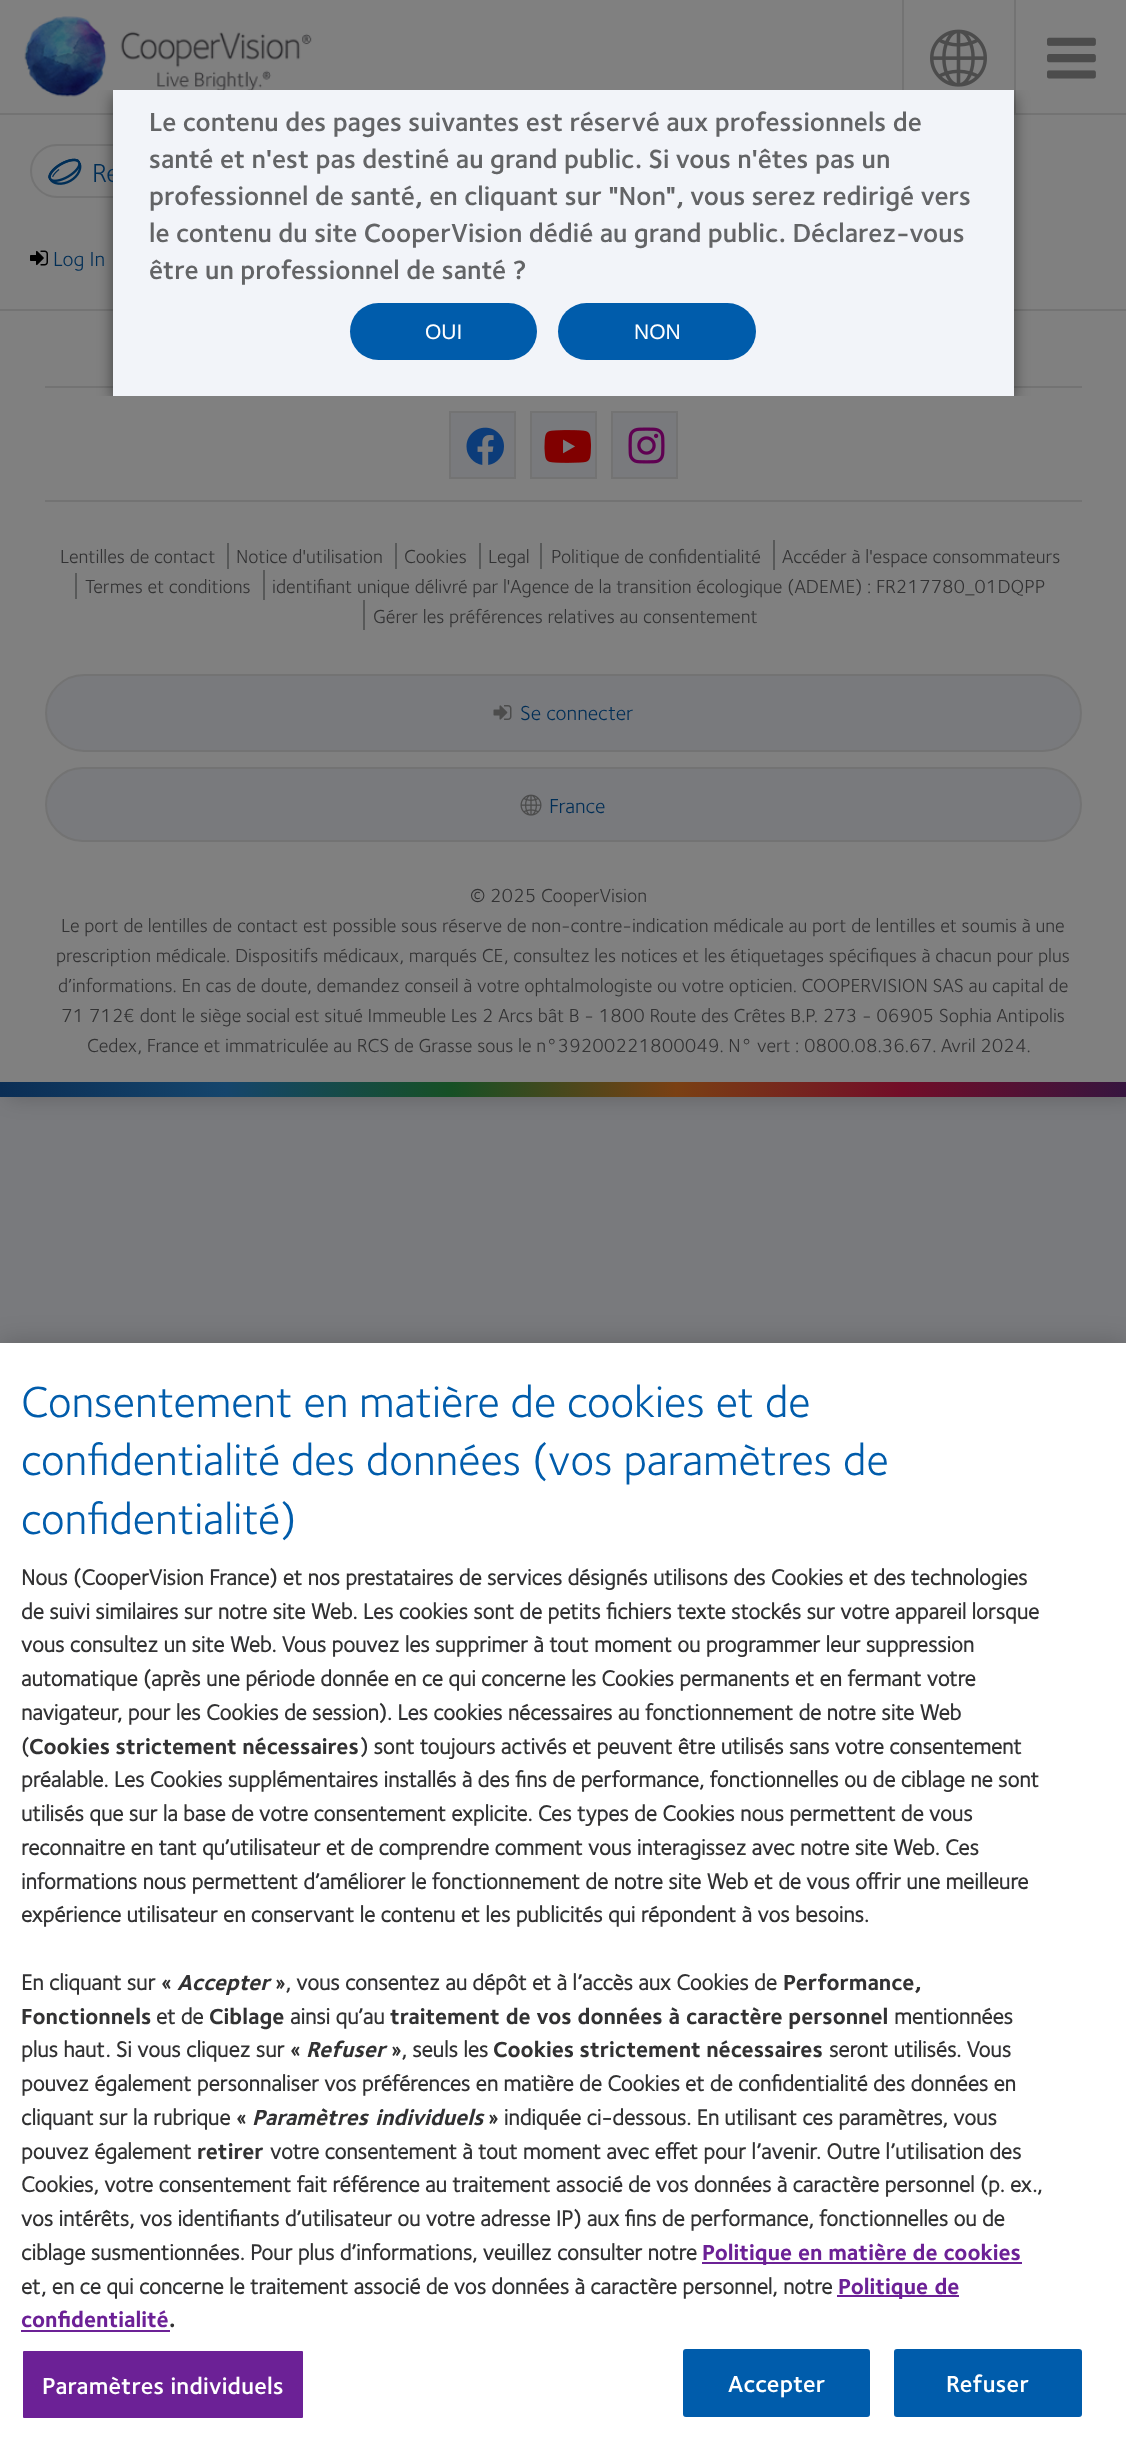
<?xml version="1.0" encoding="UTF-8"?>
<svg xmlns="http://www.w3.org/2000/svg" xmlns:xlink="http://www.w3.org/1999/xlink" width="1126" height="2448">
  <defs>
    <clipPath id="clip1"><rect x="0" y="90" width="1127" height="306" /></clipPath>
    <linearGradient id="g1" gradientUnits="userSpaceOnUse" x1="0" y1="1089" x2="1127" y2="1089"><stop offset="0" stop-color="#0b2e55" /><stop offset="0.2" stop-color="#15456c" /><stop offset="0.4" stop-color="#165025" /><stop offset="0.6" stop-color="#7a4013" /><stop offset="0.8" stop-color="#720d28" /><stop offset="1" stop-color="#36153f" /></linearGradient>
  </defs>
  <rect width="100%" height="100%" fill="#797a7d" />
  <rect x="8" width="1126" height="1097" fill="#000000" fill-opacity="0.2" filter="blur(11px)" />
  <rect width="1126" height="1082" fill="#808080" />
  <rect y="113" width="1126" height="2" fill="#737373" />
  <image x="24" y="16" width="288" height="81" xlink:href="image1.png" />
  <rect x="902" width="2" height="90" fill="#737373" />
  <image x="930" y="29" width="57" height="58" xlink:href="image2.png" />
  <rect x="1014" width="2" height="113" fill="#737373" />
  <rect x="31" y="145" width="312" height="52" rx="26" fill="none" stroke="#737373" stroke-width="2" />
  <rect y="309" width="1126" height="2" fill="#737373" />
  <rect x="45" y="386" width="1037" height="2" fill="#737373" />
  <rect x="450" y="412" width="65" height="66" fill="#797a7d" stroke="#737373" stroke-width="2" />
  <rect x="531" y="412" width="65" height="66" fill="#797a7d" stroke="#737373" stroke-width="2" />
  <rect x="612" y="412" width="65" height="66" fill="#797a7d" stroke="#737373" stroke-width="2" />
  <g clip-path="url(#clip1)">
    <rect x="113" y="95" width="901" height="306" rx="5" fill="#000000" fill-opacity="0.5" filter="blur(7.5px)" />
  </g>
  <image x="1047" y="37" width="49" height="42" xlink:href="image3.png" />
  <image x="48" y="158" width="34" height="27" xlink:href="image4.png" />
  <image x="30" y="250" width="18" height="16" xlink:href="image5.png" />
  <rect x="45" y="500" width="1037" height="2" fill="#737373" />
  <image x="466" y="427" width="38" height="38" xlink:href="image6.png" />
  <image x="544" y="430" width="47" height="33" xlink:href="image7.png" />
  <image x="628" y="427" width="37" height="37" xlink:href="image8.png" />
  <rect x="227" y="543" width="2" height="26" fill="#585959" />
  <rect x="395" y="543" width="2" height="26" fill="#585959" />
  <rect x="479" y="543" width="2" height="26" fill="#585959" />
  <rect x="540" y="543" width="2" height="26" fill="#585959" />
  <rect x="773" y="540" width="2" height="30" fill="#585959" />
  <rect x="75" y="573" width="2" height="26" fill="#585959" />
  <rect x="263" y="570" width="2" height="30" fill="#585959" />
  <rect x="363" y="600" width="2" height="30" fill="#585959" />
  <rect x="46" y="675" width="1035" height="76" rx="38" fill="#797a7d" stroke="#737373" stroke-width="2" />
  <image x="493" y="705" width="19" height="15" xlink:href="image9.png" />
  <rect x="46" y="768" width="1035" height="73" rx="36.5" fill="#797a7d" stroke="#737373" stroke-width="2" />
  <image x="520" y="794" width="22" height="22" xlink:href="image10.png" />
  <rect y="1082" width="1126" height="15" fill="url(#g1)" />
  <rect y="1343" width="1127" height="1105" fill="#000000" fill-opacity="0.2" filter="blur(13.5px)" />
  <rect y="1343" width="1126" height="1105" fill="#ffffff" />
  <rect x="702" y="2262" width="320" height="2" fill="#6c2196" />
  <rect x="837" y="2295" width="122" height="2" fill="#6c2196" />
  <rect x="21" y="2330" width="149" height="2" fill="#6c2196" />
  <rect x="22" y="2350" width="282" height="69" rx="2" fill="#6c2196" stroke="#ffffff" stroke-width="2" />
  <rect x="684" y="2350" width="185" height="66" rx="2" fill="#005cab" stroke="#005cab" stroke-width="2" />
  <rect x="895" y="2350" width="186" height="66" rx="2" fill="#005cab" stroke="#005cab" stroke-width="2" />
  <text x="92" y="182" style="font-family: 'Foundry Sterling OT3'; font-size: 27px; fill: #002e56">Re</text>
  <rect x="113" y="90" width="901" height="306" fill="#f2f4f9" />
  <rect x="558" y="303" width="198" height="57" rx="28.5" fill="#005cab" />
  <text x="634" y="339" style="font-family: Liberation Sans; font-size: 21px; fill: #ffffff">NON</text>
  <rect x="350" y="303" width="187" height="57" rx="28.5" fill="#005cab" />
  <text x="425" y="339" style="font-family: Liberation Sans; font-size: 21px; fill: #ffffff">OUI</text>
  <text x="149" y="279" style="font-family: 'Foundry Sterling OT3'; font-size: 27px; font-weight: 600; fill: #636466">être un professionnel de santé ?</text>
  <text x="149" y="242" style="font-family: 'Foundry Sterling OT3'; font-size: 27px; font-weight: 600; fill: #636466">le contenu du site CooperVision dédié au grand public. Déclarez-vous</text>
  <text x="149" y="205" style="font-family: 'Foundry Sterling OT3'; font-size: 27px; font-weight: 600; fill: #636466">professionnel de santé, en cliquant sur "Non", vous serez redirigé vers</text>
  <text x="149" y="168" style="font-family: 'Foundry Sterling OT3'; font-size: 27px; font-weight: 600; fill: #636466">santé et n'est pas destiné au grand public. Si vous n'êtes pas un</text>
  <text x="149" y="131" style="font-family: 'Foundry Sterling OT3'; font-size: 27px; font-weight: 600; fill: #636466">Le contenu des pages suivantes est réservé aux professionnels de</text>
  <text x="53" y="266" style="font-family: 'Foundry Sterling OT3'; font-size: 21px; fill: #002e56">Log In</text>
  <text x="60" y="563" style="font-family: 'Foundry Sterling OT3'; font-size: 19.5px; fill: #323233">Lentilles de contact</text>
  <text x="236" y="563" style="font-family: 'Foundry Sterling OT3'; font-size: 19.5px; fill: #323233">Notice d'utilisation</text>
  <text x="404" y="563" style="font-family: 'Foundry Sterling OT3'; font-size: 19.5px; fill: #323233">Cookies</text>
  <text x="488" y="563" style="font-family: 'Foundry Sterling OT3'; font-size: 19.5px; fill: #323233">Legal</text>
  <text x="551" y="563" style="font-family: 'Foundry Sterling OT3'; font-size: 19.5px; fill: #323233">Politique de confidentialité</text>
  <text x="782" y="563" style="font-family: 'Foundry Sterling OT3'; font-size: 19.5px; fill: #323233">Accéder à l'espace consommateurs</text>
  <text x="85" y="593" style="font-family: 'Foundry Sterling OT3'; font-size: 19.5px; fill: #323233">Termes et conditions</text>
  <text x="272" y="593" style="font-family: 'Foundry Sterling OT3'; font-size: 19.5px; fill: #323233">identifiant unique délivré par l'Agence de la transition écologique (ADEME) : FR217780_01DQPP</text>
  <text x="373" y="623" style="font-family: 'Foundry Sterling OT3'; font-size: 19.5px; fill: #323233">Gérer les préférences relatives au consentement</text>
  <text x="520" y="720" style="font-family: 'Foundry Sterling OT3'; font-size: 21px; fill: #002e56">Se connecter</text>
  <text x="549" y="813" style="font-family: 'Foundry Sterling OT3'; font-size: 21px; fill: #002e56">France</text>
  <text x="470" y="902" style="font-family: 'Foundry Sterling OT3'; font-size: 19.5px; fill: #323233">© 2025 CooperVision</text>
  <text x="61" y="932" style="font-family: 'Foundry Sterling OT3'; font-size: 19.5px; fill: #323233">Le port de lentilles de contact est possible sous réserve de non-contre-indication médicale au port de lentilles et soumis à une</text>
  <text x="56" y="962" style="font-family: 'Foundry Sterling OT3'; font-size: 19.5px; fill: #323233">prescription médicale. Dispositifs médicaux, marqués CE, consultez les notices et les étiquetages spécifiques à chacun pour plus</text>
  <text x="58" y="992" style="font-family: 'Foundry Sterling OT3'; font-size: 19.5px; fill: #323233">d’informations. En cas de doute, demandez conseil à votre ophtalmologiste ou votre opticien. COOPERVISION SAS au capital de</text>
  <text x="61" y="1022" style="font-family: 'Foundry Sterling OT3'; font-size: 19.5px; fill: #323233">71 712€ dont le siège social est situé Immeuble Les 2 Arcs bât B - 1800 Route des Crêtes B.P. 273 - 06905 Sophia Antipolis</text>
  <text x="87" y="1052" style="font-family: 'Foundry Sterling OT3'; font-size: 19.5px; fill: #323233">Cedex, France et immatriculée au RCS de Grasse sous le n°39200221800049. N° vert : 0800.08.36.67. Avril 2024.</text>
  <text x="21" y="1417" style="font-family: 'Foundry Sterling OT3'; font-size: 45px; fill: #005cab">Consentement en matière de cookies et de</text>
  <text x="21" y="1475" style="font-family: 'Foundry Sterling OT3'; font-size: 45px; fill: #005cab">confidentialité des données (vos paramètres de</text>
  <text x="21" y="1534" style="font-family: 'Foundry Sterling OT3'; font-size: 45px; fill: #005cab">confidentialité)</text>
  <text x="21" y="1585" style="font-family: 'Foundry Sterling OT3'; font-size: 22.5px; font-weight: bold; fill: #323233">Nous (CooperVision France) et nos prestataires de services désignés utilisons des Cookies et des technologies</text>
  <text x="21" y="1619" style="font-family: 'Foundry Sterling OT3'; font-size: 22.5px; font-weight: bold; fill: #323233">de suivi similaires sur notre site Web. Les cookies sont de petits fichiers texte stockés sur votre appareil lorsque</text>
  <text x="21" y="1652" style="font-family: 'Foundry Sterling OT3'; font-size: 22.5px; font-weight: bold; fill: #323233">vous consultez un site Web. Vous pouvez les supprimer à tout moment ou programmer leur suppression</text>
  <text x="21" y="1686" style="font-family: 'Foundry Sterling OT3'; font-size: 22.5px; font-weight: bold; fill: #323233">automatique (après une période donnée en ce qui concerne les Cookies permanents et en fermant votre</text>
  <text x="21" y="1720" style="font-family: 'Foundry Sterling OT3'; font-size: 22.5px; font-weight: bold; fill: #323233">navigateur, pour les Cookies de session). Les cookies nécessaires au fonctionnement de notre site Web</text>
  <text x="21" y="1754" style="font-family: 'Foundry Sterling OT3'; font-size: 22.5px; font-weight: bold; fill: #323233">(</text>
  <text x="29" y="1754" style="font-family: 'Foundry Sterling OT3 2'; font-size: 22.5px; font-weight: bold; fill: #323233">Cookies strictement nécessaires</text>
  <text x="360" y="1754" style="font-family: 'Foundry Sterling OT3'; font-size: 22.5px; font-weight: bold; fill: #323233">) sont toujours activés et peuvent être utilisés sans votre consentement</text>
  <text x="21" y="1787" style="font-family: 'Foundry Sterling OT3'; font-size: 22.5px; font-weight: bold; fill: #323233">préalable. Les Cookies supplémentaires installés à des fins de performance, fonctionnelles ou de ciblage ne sont</text>
  <text x="21" y="1821" style="font-family: 'Foundry Sterling OT3'; font-size: 22.5px; font-weight: bold; fill: #323233">utilisés que sur la base de votre consentement explicite. Ces types de Cookies nous permettent de vous</text>
  <text x="21" y="1855" style="font-family: 'Foundry Sterling OT3'; font-size: 22.5px; font-weight: bold; fill: #323233">reconnaitre en tant qu’utilisateur et de comprendre comment vous interagissez avec notre site Web. Ces</text>
  <text x="21" y="1889" style="font-family: 'Foundry Sterling OT3'; font-size: 22.5px; font-weight: bold; fill: #323233">informations nous permettent d’améliorer le fonctionnement de notre site Web et de vous offrir une meilleure</text>
  <text x="21" y="1922" style="font-family: 'Foundry Sterling OT3'; font-size: 22.5px; font-weight: bold; fill: #323233">expérience utilisateur en conservant le contenu et les publicités qui répondent à vos besoins.</text>
  <text x="21" y="1990" style="font-family: 'Foundry Sterling OT3'; font-size: 22.5px; font-weight: bold; fill: #323233">En cliquant sur «</text>
  <text x="177" y="1990" style="font-family: 'Foundry Sterling OT3'; font-size: 22.5px; font-weight: bold; font-style: italic; fill: #323233">Accepter</text>
  <text x="275" y="1990" style="font-family: 'Foundry Sterling OT3'; font-size: 22.5px; font-weight: bold; fill: #323233">», vous consentez au dépôt et à l’accès aux Cookies de</text>
  <text x="783" y="1990" style="font-family: 'Foundry Sterling OT3 2'; font-size: 22.5px; font-weight: bold; fill: #323233">Performance,</text>
  <text x="21" y="2024" style="font-family: 'Foundry Sterling OT3 2'; font-size: 22.5px; font-weight: bold; fill: #323233">Fonctionnels</text>
  <text x="156" y="2024" style="font-family: 'Foundry Sterling OT3'; font-size: 22.5px; font-weight: bold; fill: #323233">et de</text>
  <text x="209" y="2024" style="font-family: 'Foundry Sterling OT3 2'; font-size: 22.5px; font-weight: bold; fill: #323233">Ciblage</text>
  <text x="290" y="2024" style="font-family: 'Foundry Sterling OT3'; font-size: 22.5px; font-weight: bold; fill: #323233">ainsi qu’au</text>
  <text x="390" y="2024" word-spacing="0.5" style="font-family: 'Foundry Sterling OT3 2'; font-size: 22.5px; font-weight: bold; fill: #323233">traitement de vos données à caractère personnel</text>
  <text x="894" y="2024" style="font-family: 'Foundry Sterling OT3'; font-size: 22.5px; font-weight: bold; fill: #323233">mentionnées</text>
  <text x="21" y="2057" style="font-family: 'Foundry Sterling OT3'; font-size: 22.5px; font-weight: bold; fill: #323233">plus haut. Si vous cliquez sur «</text>
  <text x="306" y="2057" style="font-family: 'Foundry Sterling OT3'; font-size: 22.5px; font-weight: bold; font-style: italic; fill: #323233">Refuser</text>
  <text x="391" y="2057" style="font-family: 'Foundry Sterling OT3'; font-size: 22.5px; font-weight: bold; fill: #323233">», seuls les</text>
  <text x="493" y="2057" style="font-family: 'Foundry Sterling OT3 2'; font-size: 22.5px; font-weight: bold; fill: #323233">Cookies strictement nécessaires</text>
  <text x="829" y="2057" style="font-family: 'Foundry Sterling OT3'; font-size: 22.5px; font-weight: bold; fill: #323233">seront utilisés. Vous</text>
  <text x="21" y="2091" style="font-family: 'Foundry Sterling OT3'; font-size: 22.5px; font-weight: bold; fill: #323233">pouvez également personnaliser vos préférences en matière de Cookies et de confidentialité des données en</text>
  <text x="21" y="2125" style="font-family: 'Foundry Sterling OT3'; font-size: 22.5px; font-weight: bold; fill: #323233">cliquant sur la rubrique «</text>
  <text x="252" y="2125" word-spacing="2" style="font-family: 'Foundry Sterling OT3'; font-size: 22.5px; font-weight: bold; font-style: italic; fill: #323233">Paramètres individuels</text>
  <text x="488" y="2125" style="font-family: 'Foundry Sterling OT3'; font-size: 22.5px; font-weight: bold; fill: #323233">» indiquée ci-dessous. En utilisant ces paramètres, vous</text>
  <text x="21" y="2159" style="font-family: 'Foundry Sterling OT3'; font-size: 22.5px; font-weight: bold; fill: #323233">pouvez également</text>
  <text x="197" y="2159" style="font-family: 'Foundry Sterling OT3 2'; font-size: 22.5px; font-weight: bold; fill: #323233">retirer</text>
  <text x="270" y="2159" style="font-family: 'Foundry Sterling OT3'; font-size: 22.5px; font-weight: bold; fill: #323233">votre consentement à tout moment avec effet pour l’avenir. Outre l’utilisation des</text>
  <text x="21" y="2192" style="font-family: 'Foundry Sterling OT3'; font-size: 22.5px; font-weight: bold; fill: #323233">Cookies, votre consentement fait référence au traitement associé de vos données à caractère personnel (p. ex.,</text>
  <text x="21" y="2226" style="font-family: 'Foundry Sterling OT3'; font-size: 22.5px; font-weight: bold; fill: #323233">vos intérêts, vos identifiants d’utilisateur ou votre adresse IP) aux fins de performance, fonctionnelles ou de</text>
  <text x="21" y="2260" style="font-family: 'Foundry Sterling OT3'; font-size: 22.5px; font-weight: bold; fill: #323233">ciblage susmentionnées. Pour plus d’informations, veuillez consulter notre</text>
  <text x="702" y="2260" word-spacing="0.5" style="font-family: 'Foundry Sterling OT3 2'; font-size: 22.5px; font-weight: bold; fill: #6c2196">Politique en matière de cookies</text>
  <text x="21" y="2294" style="font-family: 'Foundry Sterling OT3'; font-size: 22.5px; font-weight: bold; fill: #323233">et, en ce qui concerne le traitement associé de vos données à caractère personnel, notre</text>
  <text x="838" y="2294" word-spacing="1" style="font-family: 'Foundry Sterling OT3 2'; font-size: 22.5px; font-weight: bold; fill: #6c2196">Politique de</text>
  <text x="21" y="2327" style="font-family: 'Foundry Sterling OT3 2'; font-size: 22.5px; font-weight: bold; fill: #6c2196">confidentialité</text>
  <text x="169" y="2327" style="font-family: 'Foundry Sterling OT3 2'; font-size: 22.5px; font-weight: bold; fill: #323233">.</text>
  <text x="42" y="2394" style="font-family: 'Foundry Sterling OT3'; font-size: 24px; font-weight: 600; letter-spacing: 0.25px; fill: #ffffff">Paramètres individuels</text>
  <text x="728" y="2392" style="font-family: 'Foundry Sterling OT3'; font-size: 24px; font-weight: 600; letter-spacing: 0.25px; fill: #ffffff">Accepter</text>
  <text x="946" y="2392" style="font-family: 'Foundry Sterling OT3'; font-size: 24px; font-weight: 600; letter-spacing: 0.25px; fill: #ffffff">Refuser</text>
</svg>
